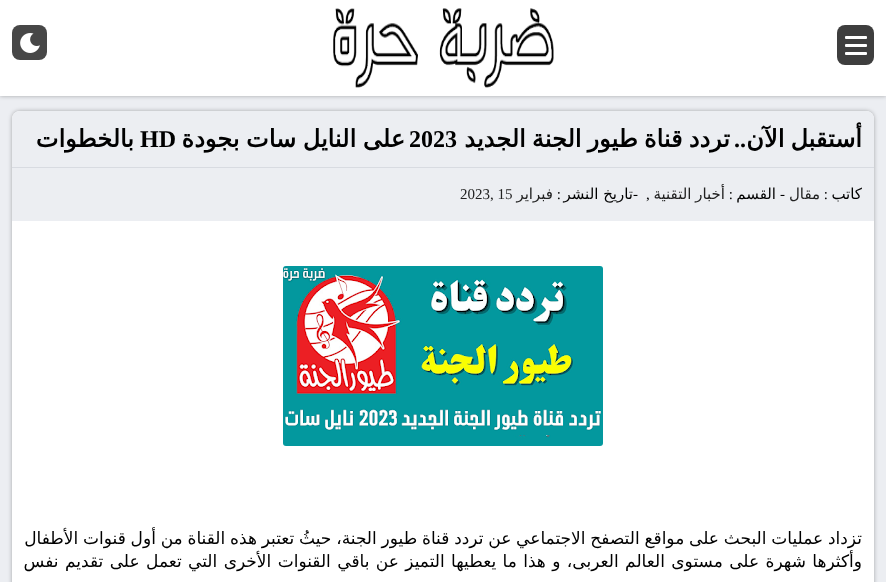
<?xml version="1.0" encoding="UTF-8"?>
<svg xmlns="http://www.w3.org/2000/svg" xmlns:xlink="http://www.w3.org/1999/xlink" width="886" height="582">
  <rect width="100%" height="100%" fill="#eceef2" />
  <rect width="886" height="96" fill="#000000" fill-opacity="0.3" filter="blur(2px)" />
  <rect width="886" height="96" fill="#ffffff" />
  <image x="333" y="8" width="221" height="80" xlink:href="image1.png" />
  <rect x="837" y="25" width="37" height="40" rx="8" fill="#3e3e3e" />
  <rect x="845" y="36" width="22" height="3" rx="1" fill="#ffffff" />
  <rect x="845" y="44" width="22" height="3" rx="1" fill="#ffffff" />
  <rect x="845" y="52" width="22" height="3" rx="1" fill="#ffffff" />
  <rect x="12" y="25" width="35" height="35" rx="8" fill="#474747" />
  <image x="20" y="33" width="20" height="20" xlink:href="image2.png" />
  <rect x="12" y="111" width="862" height="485" rx="8" fill="#000000" fill-opacity="0.3" filter="blur(2px)" />
  <rect x="12" y="111" width="862" height="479" rx="8" fill="#ffffff" />
  <path d="M 20 111 h 846 c 4.5 0 8 3.5 8 8 v 102 h -862 v -102 c 0 -4.5 3.5 -8 8 -8 z" fill="#eceef2" />
  <rect x="12" y="167" width="862" height="1" fill="#d8dbe1" />
  <image x="283" y="266" width="320" height="180" xlink:href="image3.png" />
  <text x="862" y="147" word-spacing="-1.5" style="font-family: DejaVu Sans; font-size: 24px; font-weight: bold; direction: rtl; fill: #000000">أستقبل الآن</text>
  <text x="746" y="147" style="font-family: Liberation Serif; font-size: 24px; font-weight: bold; direction: rtl; fill: #000000">..</text>
  <text x="730" y="147" word-spacing="-1.5" style="font-family: DejaVu Sans; font-size: 24px; font-weight: bold; direction: rtl; fill: #000000">تردد قناة طيور الجنة الجديد</text>
  <text x="409" y="147" style="font-family: Liberation Serif; font-size: 24px; font-weight: bold; fill: #000000">2023</text>
  <text x="405" y="147" word-spacing="-1" style="font-family: DejaVu Sans; font-size: 24px; font-weight: bold; direction: rtl; fill: #000000">على النايل سات بجودة</text>
  <text x="140" y="147" style="font-family: Liberation Serif; font-size: 24px; font-weight: bold; fill: #000000">HD</text>
  <text x="134" y="147" style="font-family: DejaVu Sans; font-size: 24px; font-weight: bold; direction: rtl; fill: #000000">بالخطوات</text>
  <text x="862" y="199" style="font-family: DejaVu Sans; font-size: 15px; direction: rtl; fill: #000000">كاتب</text>
  <text x="828" y="199" style="font-family: Liberation Serif; font-size: 15px; direction: rtl; fill: #000000">:</text>
  <text x="820" y="199" style="font-family: DejaVu Sans; font-size: 15px; direction: rtl; fill: #222222">مقال</text>
  <text x="780" y="199" style="font-family: Liberation Serif; font-size: 15px; fill: #000000">-</text>
  <text x="776" y="199" style="font-family: DejaVu Sans; font-size: 15px; direction: rtl; fill: #000000">القسم</text>
  <text x="733" y="199" style="font-family: Liberation Serif; font-size: 15px; direction: rtl; fill: #000000">:</text>
  <text x="725" y="199" word-spacing="-1" style="font-family: DejaVu Sans; font-size: 15px; direction: rtl; fill: #222222">أخبار التقنية</text>
  <text x="633" y="199" style="font-family: Liberation Serif; font-size: 15px; fill: #000000">-</text>
  <text x="633" y="199" style="font-family: DejaVu Sans; font-size: 15px; direction: rtl; fill: #000000">تاريخ النشر</text>
  <text x="561" y="199" style="font-family: Liberation Serif; font-size: 15px; direction: rtl; fill: #000000">:</text>
  <text x="553" y="199" style="font-family: DejaVu Sans; font-size: 15px; direction: rtl; fill: #222222">فبراير</text>
  <text x="460" y="199" style="font-family: Liberation Serif; font-size: 15px; fill: #222222">2023, 15</text>
  <text x="646" y="199" style="font-family: Liberation Serif; font-size: 15px; fill: #000000">,</text>
  <text x="862" y="544" word-spacing="-0.6" style="font-family: DejaVu Sans; font-size: 17px; direction: rtl; fill: #000000">تزداد عمليات البحث على مواقع التصفح الاجتماعي عن تردد قناة طيور الجنة، حيثُ تعتبر هذه القناة من أول قنوات الأطفال</text>
  <text x="862" y="567" word-spacing="1" style="font-family: DejaVu Sans; font-size: 17px; direction: rtl; fill: #000000">وأكثرها شهرة على مستوى العالم العربى، و هذا ما يعطيها التميز عن باقي القنوات الأخرى التي تعمل على تقديم نفس</text>
</svg>
